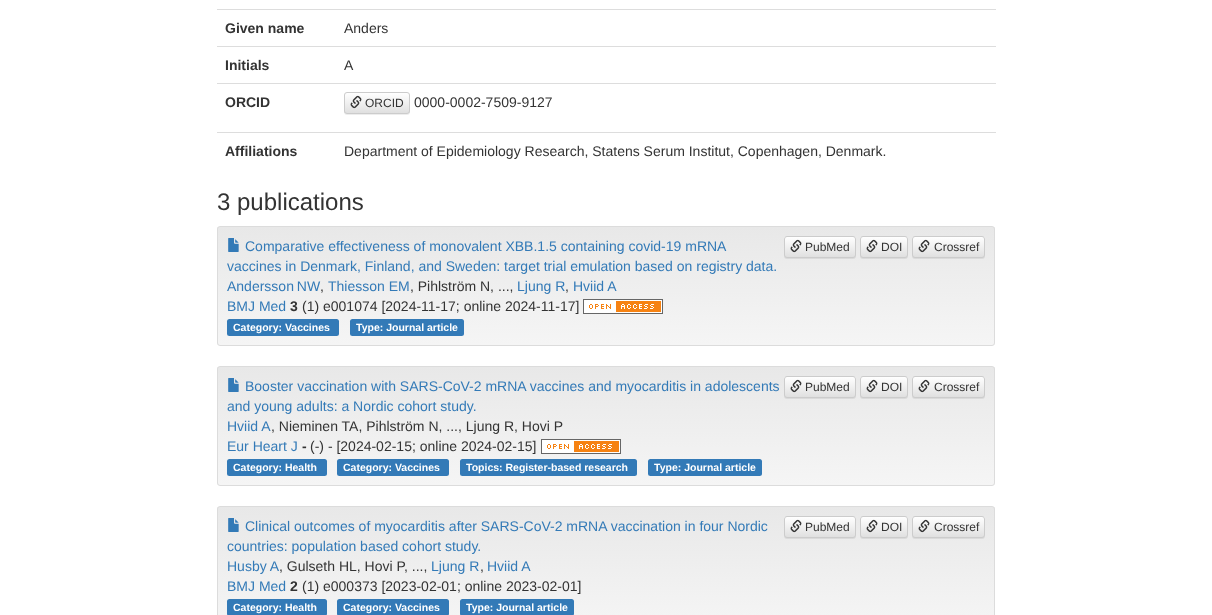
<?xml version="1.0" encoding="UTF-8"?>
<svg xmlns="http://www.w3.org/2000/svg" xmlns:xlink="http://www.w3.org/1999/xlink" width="1212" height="615">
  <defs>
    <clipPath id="clip1"><rect x="344" y="92" width="66" height="22" rx="3" /></clipPath>
    <linearGradient id="g1" gradientUnits="userSpaceOnUse" x1="377" y1="93" x2="377" y2="113"><stop offset="0" stop-color="#ffffff" /><stop offset="1" stop-color="#e0e0e0" /></linearGradient>
    <clipPath id="clip2"><rect x="217" y="226" width="778" height="120" rx="3" /></clipPath>
    <linearGradient id="g2" gradientUnits="userSpaceOnUse" x1="606" y1="227" x2="606" y2="345"><stop offset="0" stop-color="#e8e8e8" /><stop offset="1" stop-color="#f5f5f5" /></linearGradient>
    <clipPath id="clip3"><rect x="784" y="236" width="72" height="22" rx="3" /></clipPath>
    <linearGradient id="g3" gradientUnits="userSpaceOnUse" x1="820" y1="237" x2="820" y2="257"><stop offset="0" stop-color="#ffffff" /><stop offset="1" stop-color="#e0e0e0" /></linearGradient>
    <clipPath id="clip4"><rect x="860" y="236" width="48" height="22" rx="3" /></clipPath>
    <linearGradient id="g4" gradientUnits="userSpaceOnUse" x1="884" y1="237" x2="884" y2="257"><stop offset="0" stop-color="#ffffff" /><stop offset="1" stop-color="#e0e0e0" /></linearGradient>
    <clipPath id="clip5"><rect x="912" y="236" width="73" height="22" rx="3" /></clipPath>
    <linearGradient id="g5" gradientUnits="userSpaceOnUse" x1="949" y1="237" x2="949" y2="257"><stop offset="0" stop-color="#ffffff" /><stop offset="1" stop-color="#e0e0e0" /></linearGradient>
    <clipPath id="clip6"><rect x="217" y="366" width="778" height="120" rx="3" /></clipPath>
    <linearGradient id="g6" gradientUnits="userSpaceOnUse" x1="606" y1="367" x2="606" y2="485"><stop offset="0" stop-color="#e8e8e8" /><stop offset="1" stop-color="#f5f5f5" /></linearGradient>
    <clipPath id="clip7"><rect x="784" y="376" width="72" height="22" rx="3" /></clipPath>
    <linearGradient id="g7" gradientUnits="userSpaceOnUse" x1="820" y1="377" x2="820" y2="397"><stop offset="0" stop-color="#ffffff" /><stop offset="1" stop-color="#e0e0e0" /></linearGradient>
    <clipPath id="clip8"><rect x="860" y="376" width="48" height="22" rx="3" /></clipPath>
    <linearGradient id="g8" gradientUnits="userSpaceOnUse" x1="884" y1="377" x2="884" y2="397"><stop offset="0" stop-color="#ffffff" /><stop offset="1" stop-color="#e0e0e0" /></linearGradient>
    <clipPath id="clip9"><rect x="912" y="376" width="73" height="22" rx="3" /></clipPath>
    <linearGradient id="g9" gradientUnits="userSpaceOnUse" x1="949" y1="377" x2="949" y2="397"><stop offset="0" stop-color="#ffffff" /><stop offset="1" stop-color="#e0e0e0" /></linearGradient>
    <clipPath id="clip10"><rect x="217" y="506" width="778" height="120" rx="3" /></clipPath>
    <linearGradient id="g10" gradientUnits="userSpaceOnUse" x1="606" y1="507" x2="606" y2="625"><stop offset="0" stop-color="#e8e8e8" /><stop offset="1" stop-color="#f5f5f5" /></linearGradient>
    <clipPath id="clip11"><rect x="784" y="516" width="72" height="22" rx="3" /></clipPath>
    <linearGradient id="g11" gradientUnits="userSpaceOnUse" x1="820" y1="517" x2="820" y2="537"><stop offset="0" stop-color="#ffffff" /><stop offset="1" stop-color="#e0e0e0" /></linearGradient>
    <clipPath id="clip12"><rect x="860" y="516" width="48" height="22" rx="3" /></clipPath>
    <linearGradient id="g12" gradientUnits="userSpaceOnUse" x1="884" y1="517" x2="884" y2="537"><stop offset="0" stop-color="#ffffff" /><stop offset="1" stop-color="#e0e0e0" /></linearGradient>
    <clipPath id="clip13"><rect x="912" y="516" width="73" height="22" rx="3" /></clipPath>
    <linearGradient id="g13" gradientUnits="userSpaceOnUse" x1="949" y1="517" x2="949" y2="537"><stop offset="0" stop-color="#ffffff" /><stop offset="1" stop-color="#e0e0e0" /></linearGradient>
  </defs>
  <rect width="100%" height="100%" fill="#ffffff" />
  <rect x="217" y="9" width="779" height="1" fill="#dddddd" />
  <rect x="217" y="46" width="779" height="1" fill="#dddddd" />
  <rect x="217" y="83" width="779" height="1" fill="#dddddd" />
  <rect x="344" y="93" width="66" height="22" rx="3" fill="#000000" fill-opacity="0.07" filter="blur(0.5px)" />
  <g clip-path="url(#clip1)">
    <rect x="344" y="93" width="66" height="20" fill="url(#g1)" />
  </g>
  <rect x="344.5" y="92.5" width="65" height="21" rx="2.5" fill="none" stroke="#cccccc" />
  <image x="350" y="95" width="12" height="14" xlink:href="image1.png" />
  <rect x="217" y="132" width="779" height="1" fill="#dddddd" />
  <g clip-path="url(#clip2)">
    <rect x="217" y="227" width="778" height="118" fill="url(#g2)" />
  </g>
  <rect x="217.5" y="226.5" width="777" height="119" rx="2.5" fill="none" stroke="#dcdcdc" />
  <image x="228" y="238" width="11" height="14" xlink:href="image2.png" />
  <rect x="784" y="237" width="72" height="22" rx="3" fill="#000000" fill-opacity="0.07" filter="blur(0.5px)" />
  <g clip-path="url(#clip3)">
    <rect x="784" y="237" width="72" height="20" fill="url(#g3)" />
  </g>
  <rect x="784.5" y="236.5" width="71" height="21" rx="2.5" fill="none" stroke="#cccccc" />
  <image x="790" y="239" width="12" height="14" xlink:href="image1.png" />
  <rect x="860" y="237" width="48" height="22" rx="3" fill="#000000" fill-opacity="0.07" filter="blur(0.5px)" />
  <g clip-path="url(#clip4)">
    <rect x="860" y="237" width="48" height="20" fill="url(#g4)" />
  </g>
  <rect x="860.5" y="236.5" width="47" height="21" rx="2.5" fill="none" stroke="#cccccc" />
  <image x="866" y="239" width="12" height="14" xlink:href="image1.png" />
  <rect x="912" y="237" width="73" height="22" rx="3" fill="#000000" fill-opacity="0.07" filter="blur(0.5px)" />
  <g clip-path="url(#clip5)">
    <rect x="912" y="237" width="73" height="20" fill="url(#g5)" />
  </g>
  <rect x="912.5" y="236.5" width="72" height="21" rx="2.5" fill="none" stroke="#cccccc" />
  <image x="918" y="239" width="12" height="14" xlink:href="image1.png" />
  <image x="583" y="299" width="80" height="15" xlink:href="image3.png" />
  <rect x="227" y="319" width="112" height="17" rx="2.5" fill="#337ab7" />
  <rect x="350" y="319" width="114" height="17" rx="2.5" fill="#337ab7" />
  <g clip-path="url(#clip6)">
    <rect x="217" y="367" width="778" height="118" fill="url(#g6)" />
  </g>
  <rect x="217.5" y="366.5" width="777" height="119" rx="2.5" fill="none" stroke="#dcdcdc" />
  <image x="228" y="378" width="11" height="14" xlink:href="image2.png" />
  <rect x="784" y="377" width="72" height="22" rx="3" fill="#000000" fill-opacity="0.07" filter="blur(0.5px)" />
  <g clip-path="url(#clip7)">
    <rect x="784" y="377" width="72" height="20" fill="url(#g7)" />
  </g>
  <rect x="784.5" y="376.5" width="71" height="21" rx="2.5" fill="none" stroke="#cccccc" />
  <image x="790" y="379" width="12" height="14" xlink:href="image1.png" />
  <rect x="860" y="377" width="48" height="22" rx="3" fill="#000000" fill-opacity="0.07" filter="blur(0.5px)" />
  <g clip-path="url(#clip8)">
    <rect x="860" y="377" width="48" height="20" fill="url(#g8)" />
  </g>
  <rect x="860.5" y="376.5" width="47" height="21" rx="2.5" fill="none" stroke="#cccccc" />
  <image x="866" y="379" width="12" height="14" xlink:href="image1.png" />
  <rect x="912" y="377" width="73" height="22" rx="3" fill="#000000" fill-opacity="0.07" filter="blur(0.5px)" />
  <g clip-path="url(#clip9)">
    <rect x="912" y="377" width="73" height="20" fill="url(#g9)" />
  </g>
  <rect x="912.5" y="376.5" width="72" height="21" rx="2.5" fill="none" stroke="#cccccc" />
  <image x="918" y="379" width="12" height="14" xlink:href="image1.png" />
  <image x="541" y="439" width="80" height="15" xlink:href="image3.png" />
  <rect x="227" y="459" width="100" height="17" rx="2.5" fill="#337ab7" />
  <rect x="337" y="459" width="112" height="17" rx="2.5" fill="#337ab7" />
  <rect x="460" y="459" width="177" height="17" rx="2.5" fill="#337ab7" />
  <rect x="648" y="459" width="114" height="17" rx="2.5" fill="#337ab7" />
  <g clip-path="url(#clip10)">
    <rect x="217" y="507" width="778" height="108" fill="url(#g10)" />
  </g>
  <rect x="217.5" y="506.5" width="777" height="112" rx="2.5" fill="none" stroke="#dcdcdc" />
  <image x="228" y="518" width="11" height="14" xlink:href="image2.png" />
  <rect x="784" y="517" width="72" height="22" rx="3" fill="#000000" fill-opacity="0.07" filter="blur(0.5px)" />
  <g clip-path="url(#clip11)">
    <rect x="784" y="517" width="72" height="20" fill="url(#g11)" />
  </g>
  <rect x="784.5" y="516.5" width="71" height="21" rx="2.5" fill="none" stroke="#cccccc" />
  <image x="790" y="519" width="12" height="14" xlink:href="image1.png" />
  <rect x="860" y="517" width="48" height="22" rx="3" fill="#000000" fill-opacity="0.07" filter="blur(0.5px)" />
  <g clip-path="url(#clip12)">
    <rect x="860" y="517" width="48" height="20" fill="url(#g12)" />
  </g>
  <rect x="860.5" y="516.5" width="47" height="21" rx="2.5" fill="none" stroke="#cccccc" />
  <image x="866" y="519" width="12" height="14" xlink:href="image1.png" />
  <rect x="912" y="517" width="73" height="22" rx="3" fill="#000000" fill-opacity="0.07" filter="blur(0.5px)" />
  <g clip-path="url(#clip13)">
    <rect x="912" y="517" width="73" height="20" fill="url(#g13)" />
  </g>
  <rect x="912.5" y="516.5" width="72" height="21" rx="2.5" fill="none" stroke="#cccccc" />
  <image x="918" y="519" width="12" height="14" xlink:href="image1.png" />
  <rect x="227" y="599" width="100" height="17" rx="2.5" fill="#337ab7" />
  <rect x="337" y="599" width="112" height="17" rx="2.5" fill="#337ab7" />
  <rect x="460" y="599" width="114" height="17" rx="2.5" fill="#337ab7" />
  <text x="225" y="33" style="font-family: Liberation Sans; font-size: 14px; font-weight: bold; fill: #333333">Given name</text>
  <text x="344" y="33" style="font-family: Liberation Sans; font-size: 14px; fill: #333333">Anders</text>
  <text x="225" y="70" style="font-family: Liberation Sans; font-size: 14px; font-weight: bold; fill: #333333">Initials</text>
  <text x="344" y="70" style="font-family: Liberation Sans; font-size: 14px; fill: #333333">A</text>
  <text x="225" y="107" style="font-family: Liberation Sans; font-size: 14px; font-weight: bold; fill: #333333">ORCID</text>
  <text x="365" y="107" style="font-family: Liberation Sans; font-size: 12px; fill: #333333">ORCID</text>
  <text x="414" y="107" style="font-family: Liberation Sans; font-size: 14px; fill: #333333">0000-0002-7509-9127</text>
  <text x="225" y="156" style="font-family: Liberation Sans; font-size: 14px; font-weight: bold; fill: #333333">Affiliations</text>
  <text x="344" y="156" style="font-family: Liberation Sans; font-size: 14px; fill: #333333">Department of Epidemiology Research, Statens Serum Institut, Copenhagen, Denmark.</text>
  <text x="217" y="210" style="font-family: Liberation Sans; font-size: 24px; fill: #333333">3 publications</text>
  <text x="245" y="251" style="font-family: Liberation Sans; font-size: 14px; fill: #337ab7">Comparative effectiveness of monovalent XBB.1.5 containing covid-19 mRNA</text>
  <text x="227" y="271" style="font-family: Liberation Sans; font-size: 14px; fill: #337ab7">vaccines in Denmark, Finland, and Sweden: target trial emulation based on registry data.</text>
  <text x="805" y="251" style="font-family: Liberation Sans; font-size: 12px; fill: #333333">PubMed</text>
  <text x="881" y="251" style="font-family: Liberation Sans; font-size: 12px; fill: #333333">DOI</text>
  <text x="934" y="251" style="font-family: Liberation Sans; font-size: 12px; fill: #333333">Crossref</text>
  <text x="227" y="291" word-spacing="-1" style="font-family: Liberation Sans; font-size: 14px; fill: #337ab7">Andersson NW</text>
  <text x="320" y="291" style="font-family: Liberation Sans; font-size: 14px; fill: #333333">,</text>
  <text x="328" y="291" style="font-family: Liberation Sans; font-size: 14px; fill: #337ab7">Thiesson EM</text>
  <text x="410" y="291" style="font-family: Liberation Sans; font-size: 14px; fill: #333333">, Pihlström N, ...,</text>
  <text x="517" y="291" style="font-family: Liberation Sans; font-size: 14px; fill: #337ab7">Ljung R</text>
  <text x="565" y="291" style="font-family: Liberation Sans; font-size: 14px; fill: #333333">,</text>
  <text x="573" y="291" style="font-family: Liberation Sans; font-size: 14px; fill: #337ab7">Hviid A</text>
  <text x="227" y="311" style="font-family: Liberation Sans; font-size: 14px; fill: #337ab7">BMJ Med</text>
  <text x="290" y="311" style="font-family: Liberation Sans; font-size: 14px; font-weight: bold; fill: #333333">3</text>
  <text x="302" y="311" style="font-family: Liberation Sans; font-size: 14px; fill: #333333">(1) e001074 [2024-11-17; online 2024-11-17]</text>
  <text x="233" y="331" style="font-family: Liberation Sans; font-size: 10.5px; font-weight: bold; fill: #ffffff">Category: Vaccines</text>
  <text x="356" y="331" style="font-family: Liberation Sans; font-size: 10.5px; font-weight: bold; fill: #ffffff">Type: Journal article</text>
  <text x="245" y="391" style="font-family: Liberation Sans; font-size: 14px; fill: #337ab7">Booster vaccination with SARS-CoV-2 mRNA vaccines and myocarditis in adolescents</text>
  <text x="227" y="411" style="font-family: Liberation Sans; font-size: 14px; fill: #337ab7">and young adults: a Nordic cohort study.</text>
  <text x="805" y="391" style="font-family: Liberation Sans; font-size: 12px; fill: #333333">PubMed</text>
  <text x="881" y="391" style="font-family: Liberation Sans; font-size: 12px; fill: #333333">DOI</text>
  <text x="934" y="391" style="font-family: Liberation Sans; font-size: 12px; fill: #333333">Crossref</text>
  <text x="227" y="431" style="font-family: Liberation Sans; font-size: 14px; fill: #337ab7">Hviid A</text>
  <text x="271" y="431" style="font-family: Liberation Sans; font-size: 14px; fill: #333333">, Nieminen TA, Pihlström N, ..., Ljung R, Hovi P</text>
  <text x="227" y="451" style="font-family: Liberation Sans; font-size: 14px; fill: #337ab7">Eur Heart J</text>
  <text x="302" y="451" style="font-family: Liberation Sans; font-size: 14px; font-weight: bold; fill: #333333">-</text>
  <text x="310" y="451" style="font-family: Liberation Sans; font-size: 14px; fill: #333333">(-) - [2024-02-15; online 2024-02-15]</text>
  <text x="233" y="471" style="font-family: Liberation Sans; font-size: 10.5px; font-weight: bold; fill: #ffffff">Category: Health</text>
  <text x="343" y="471" style="font-family: Liberation Sans; font-size: 10.5px; font-weight: bold; fill: #ffffff">Category: Vaccines</text>
  <text x="466" y="471" style="font-family: Liberation Sans; font-size: 10.5px; font-weight: bold; fill: #ffffff">Topics: Register-based research</text>
  <text x="654" y="471" style="font-family: Liberation Sans; font-size: 10.5px; font-weight: bold; fill: #ffffff">Type: Journal article</text>
  <text x="245" y="531" style="font-family: Liberation Sans; font-size: 14px; fill: #337ab7">Clinical outcomes of myocarditis after SARS-CoV-2 mRNA vaccination in four Nordic</text>
  <text x="227" y="551" style="font-family: Liberation Sans; font-size: 14px; fill: #337ab7">countries: population based cohort study.</text>
  <text x="805" y="531" style="font-family: Liberation Sans; font-size: 12px; fill: #333333">PubMed</text>
  <text x="881" y="531" style="font-family: Liberation Sans; font-size: 12px; fill: #333333">DOI</text>
  <text x="934" y="531" style="font-family: Liberation Sans; font-size: 12px; fill: #333333">Crossref</text>
  <text x="227" y="571" style="font-family: Liberation Sans; font-size: 14px; fill: #337ab7">Husby A</text>
  <text x="279" y="571" style="font-family: Liberation Sans; font-size: 14px; fill: #333333">, Gulseth HL, Hovi P, ...,</text>
  <text x="431" y="571" style="font-family: Liberation Sans; font-size: 14px; fill: #337ab7">Ljung R</text>
  <text x="480" y="571" style="font-family: Liberation Sans; font-size: 14px; fill: #333333">,</text>
  <text x="487" y="571" style="font-family: Liberation Sans; font-size: 14px; fill: #337ab7">Hviid A</text>
  <text x="227" y="591" style="font-family: Liberation Sans; font-size: 14px; fill: #337ab7">BMJ Med</text>
  <text x="290" y="591" style="font-family: Liberation Sans; font-size: 14px; font-weight: bold; fill: #333333">2</text>
  <text x="302" y="591" style="font-family: Liberation Sans; font-size: 14px; fill: #333333">(1) e000373 [2023-02-01; online 2023-02-01]</text>
  <text x="233" y="611" style="font-family: Liberation Sans; font-size: 10.5px; font-weight: bold; fill: #ffffff">Category: Health</text>
  <text x="343" y="611" style="font-family: Liberation Sans; font-size: 10.5px; font-weight: bold; fill: #ffffff">Category: Vaccines</text>
  <text x="466" y="611" style="font-family: Liberation Sans; font-size: 10.5px; font-weight: bold; fill: #ffffff">Type: Journal article</text>
</svg>
